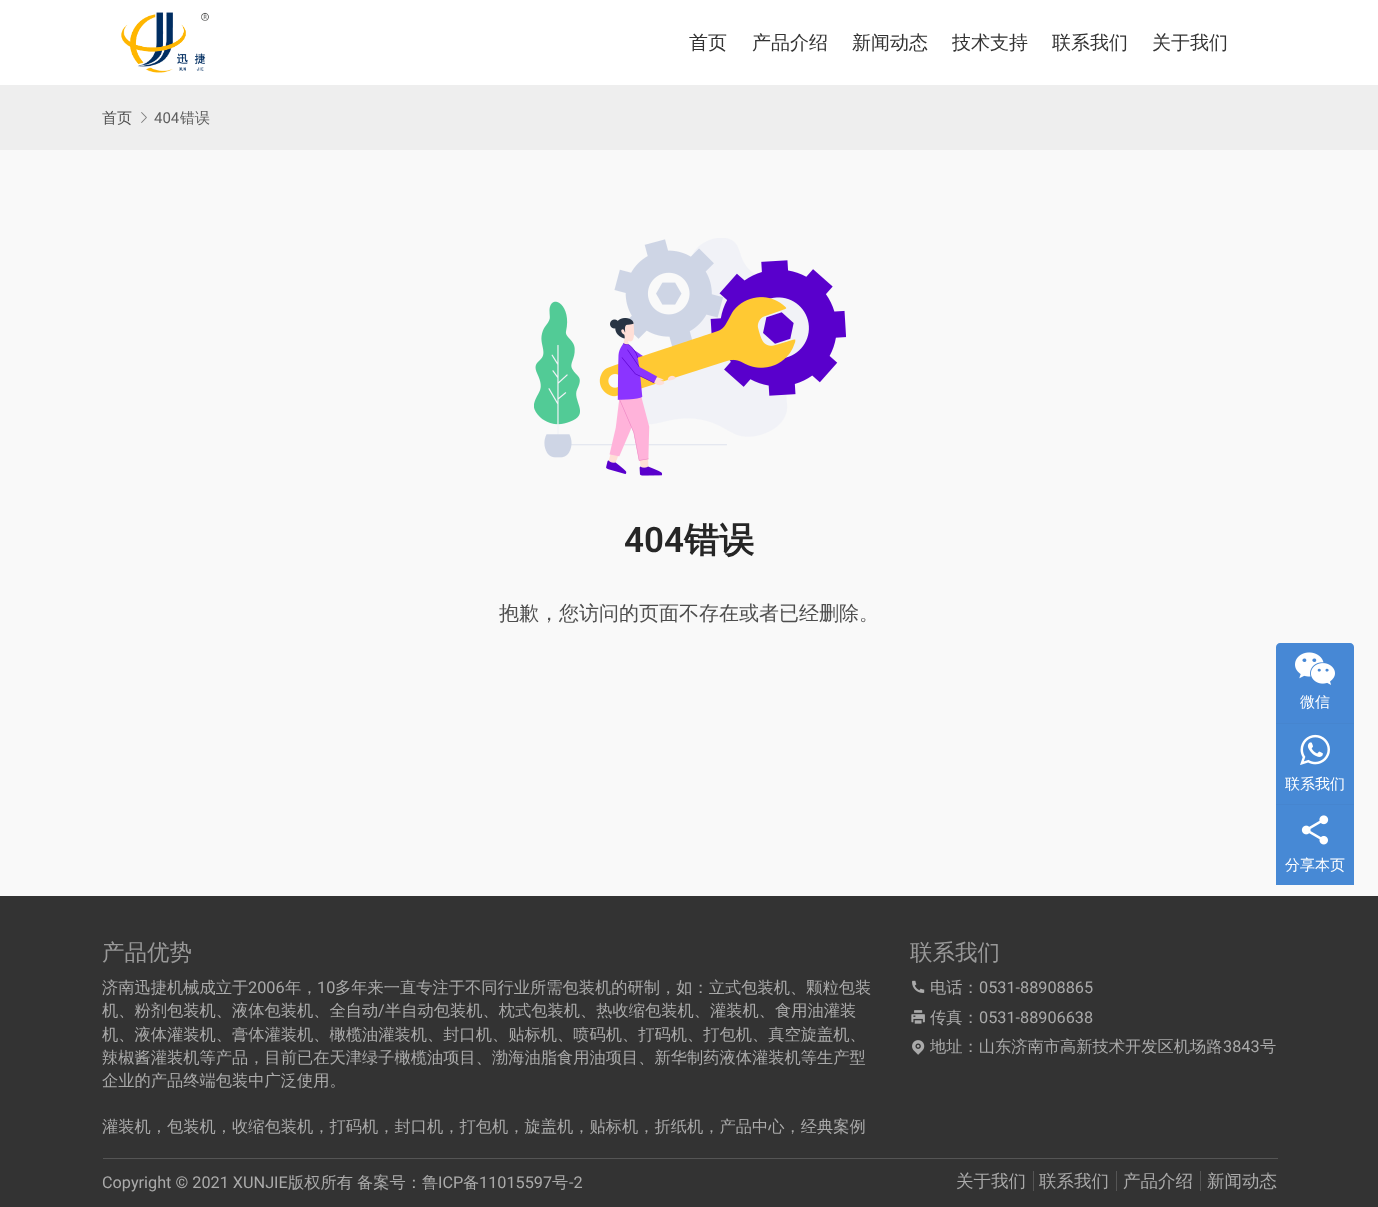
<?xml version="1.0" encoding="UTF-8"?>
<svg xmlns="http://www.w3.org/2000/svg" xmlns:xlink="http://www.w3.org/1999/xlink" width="1378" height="1207">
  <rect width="100%" height="100%" fill="#f9f9f9" />
  <rect width="1378" height="85" fill="#ffffff" />
  <image x="121" y="12" width="88" height="61" xlink:href="image1.png" />
  <rect y="85" width="1378" height="65" fill="#eeeeee" />
  <image x="141" y="112" width="6" height="11" xlink:href="image2.png" />
  <image x="534" y="238" width="312" height="238" xlink:href="image3.png" />
  <path d="M 1280 643 h 70 c 2 0 4 2 4 4 v 76 h -78 v -76 c 0 -2 2 -4 4 -4 z" fill="#4a90e2" />
  <path d="M 1280 643 h 70 c 2 0 4 2 4 4 v 76 h -78 v -76 c 0 -2 2 -4 4 -4 z" fill="#262626" fill-opacity="0.07" />
  <image x="1295" y="652" width="40" height="33" xlink:href="image4.png" />
  <rect x="1276" y="723" width="78" height="1" fill="#4685cf" />
  <rect x="1276" y="724" width="78" height="80" fill="#4789d5" />
  <image x="1300" y="734" width="30" height="31" xlink:href="image5.png" />
  <rect x="1276" y="804" width="78" height="1" fill="#4685cf" />
  <rect x="1276" y="805" width="78" height="80" fill="#4789d5" />
  <image x="1301" y="815" width="28" height="30" xlink:href="image6.png" />
  <rect y="896" width="1378" height="311" fill="#333333" />
  <image x="912" y="980" width="13" height="13" xlink:href="image7.png" />
  <image x="911" y="1010" width="14" height="14" xlink:href="image8.png" />
  <image x="912" y="1040" width="13" height="15" xlink:href="image9.png" />
  <rect x="103" y="1158" width="1175" height="1" fill="#555555" />
  <rect x="1033" y="1171" width="1" height="20" fill="#555555" />
  <rect x="1116" y="1171" width="1" height="20" fill="#555555" />
  <rect x="1200" y="1171" width="1" height="20" fill="#555555" />
  <text x="689" y="49" style="font-family: WenQuanYi Zen Hei; font-size: 19px; font-weight: 500; fill: #333333">首页</text>
  <text x="752" y="49" style="font-family: WenQuanYi Zen Hei; font-size: 19px; font-weight: 500; fill: #333333">产品介绍</text>
  <text x="852" y="49" style="font-family: WenQuanYi Zen Hei; font-size: 19px; font-weight: 500; fill: #333333">新闻动态</text>
  <text x="952" y="49" style="font-family: WenQuanYi Zen Hei; font-size: 19px; font-weight: 500; fill: #333333">技术支持</text>
  <text x="1052" y="49" style="font-family: WenQuanYi Zen Hei; font-size: 19px; font-weight: 500; fill: #333333">联系我们</text>
  <text x="1152" y="49" style="font-family: WenQuanYi Zen Hei; font-size: 19px; font-weight: 500; fill: #333333">关于我们</text>
  <text x="102" y="123" style="font-family: WenQuanYi Zen Hei; font-size: 15px; font-weight: 500; fill: #4e4e4e">首页</text>
  <text x="154" y="123" style="font-family: Roboto; font-size: 15px; fill: #5e5e5e">404</text>
  <text x="180" y="123" style="font-family: WenQuanYi Zen Hei; font-size: 15px; font-weight: 500; fill: #5e5e5e">错误</text>
  <text x="624" y="552" style="font-family: Roboto; font-size: 35px; font-weight: 600; fill: #262626">404</text>
  <text x="684" y="552" style="font-family: WenQuanYi Zen Hei; font-size: 35px; font-weight: bold; fill: #262626">错误</text>
  <text x="499" y="620" style="font-family: WenQuanYi Zen Hei; font-size: 20px; font-weight: 500; fill: #4e4e4e">抱歉，您访问的页面不存在或者已经删除。</text>
  <text x="1300" y="707" style="font-family: WenQuanYi Zen Hei; font-size: 15px; font-weight: 500; fill: #ffffff">微信</text>
  <text x="1285" y="789" style="font-family: WenQuanYi Zen Hei; font-size: 15px; font-weight: 500; fill: #ffffff">联系我们</text>
  <text x="1285" y="870" style="font-family: WenQuanYi Zen Hei; font-size: 15px; font-weight: 500; fill: #ffffff">分享本页</text>
  <text x="102" y="960" style="font-family: WenQuanYi Zen Hei; font-size: 22.5px; font-weight: 500; fill: #999999">产品优势</text>
  <text x="102" y="993" style="font-family: WenQuanYi Zen Hei; font-size: 16.25px; font-weight: 500; fill: #aaaaaa">济南迅捷机械成立于</text>
  <text x="248" y="993" style="font-family: Roboto; font-size: 16.25px; fill: #aaaaaa">2006</text>
  <text x="285" y="993" style="font-family: WenQuanYi Zen Hei; font-size: 16.25px; font-weight: 500; fill: #aaaaaa">年，</text>
  <text x="317" y="993" style="font-family: Roboto; font-size: 16.25px; fill: #aaaaaa">10</text>
  <text x="335" y="993" style="font-family: WenQuanYi Zen Hei; font-size: 16.25px; font-weight: 500; fill: #aaaaaa">多年来一直专注于不同行业所需包装机的研制，如：立式包装机、颗粒包装</text>
  <text x="102" y="1016" style="font-family: WenQuanYi Zen Hei; font-size: 16.25px; font-weight: 500; fill: #aaaaaa">机、粉剂包装机、液体包装机、全自动</text>
  <text x="378" y="1016" style="font-family: Roboto; font-size: 16.25px; fill: #aaaaaa">/</text>
  <text x="385" y="1016" style="font-family: WenQuanYi Zen Hei; font-size: 16.25px; font-weight: 500; fill: #aaaaaa">半自动包装机、枕式包装机、热收缩包装机、灌装机、食用油灌装</text>
  <text x="102" y="1040" style="font-family: WenQuanYi Zen Hei; font-size: 16.25px; font-weight: 500; fill: #aaaaaa">机、液体灌装机、膏体灌装机、橄榄油灌装机、封口机、贴标机、喷码机、打码机、打包机、真空旋盖机、</text>
  <text x="102" y="1063" style="font-family: WenQuanYi Zen Hei; font-size: 16.25px; font-weight: 500; fill: #aaaaaa">辣椒酱灌装机等产品，目前已在天津绿子橄榄油项目、渤海油脂食用油项目、新华制药液体灌装机等生产型</text>
  <text x="102" y="1086" style="font-family: WenQuanYi Zen Hei; font-size: 16.25px; font-weight: 500; fill: #aaaaaa">企业的产品终端包装中广泛使用。</text>
  <text x="102" y="1132" style="font-family: WenQuanYi Zen Hei; font-size: 16.25px; font-weight: 500; fill: #aaaaaa">灌装机，包装机，收缩包装机，打码机，封口机，打包机，旋盖机，贴标机，折纸机，产品中心，经典案例</text>
  <text x="910" y="960" style="font-family: WenQuanYi Zen Hei; font-size: 22.5px; font-weight: 500; fill: #999999">联系我们</text>
  <text x="930" y="993" style="font-family: WenQuanYi Zen Hei; font-size: 16.25px; font-weight: 500; fill: #aaaaaa">电话：</text>
  <text x="979" y="993" style="font-family: Roboto; font-size: 16.25px; fill: #aaaaaa">0531-88908865</text>
  <text x="930" y="1023" style="font-family: WenQuanYi Zen Hei; font-size: 16.25px; font-weight: 500; fill: #aaaaaa">传真：</text>
  <text x="979" y="1023" style="font-family: Roboto; font-size: 16.25px; fill: #aaaaaa">0531-88906638</text>
  <text x="930" y="1052" style="font-family: WenQuanYi Zen Hei; font-size: 16.25px; font-weight: 500; fill: #aaaaaa">地址：山东济南市高新技术开发区机场路</text>
  <text x="1223" y="1052" style="font-family: Roboto; font-size: 16.25px; fill: #aaaaaa">3843</text>
  <text x="1260" y="1052" style="font-family: WenQuanYi Zen Hei; font-size: 16.25px; font-weight: 500; fill: #aaaaaa">号</text>
  <text x="102" y="1188" style="font-family: Roboto; font-size: 16.25px; fill: #aaaaaa">Copyright © 2021 XUNJIE</text>
  <text x="288" y="1188" style="font-family: WenQuanYi Zen Hei; font-size: 16.25px; font-weight: 500; fill: #aaaaaa">版权所有</text>
  <text x="357" y="1188" style="font-family: WenQuanYi Zen Hei; font-size: 16.25px; font-weight: 500; fill: #aaaaaa">备案号：鲁</text>
  <text x="438" y="1188" style="font-family: Roboto; font-size: 16.25px; fill: #aaaaaa">ICP</text>
  <text x="463" y="1188" style="font-family: WenQuanYi Zen Hei; font-size: 16.25px; font-weight: 500; fill: #aaaaaa">备</text>
  <text x="479" y="1188" style="font-family: Roboto; font-size: 16.25px; fill: #aaaaaa">11015597</text>
  <text x="552" y="1188" style="font-family: WenQuanYi Zen Hei; font-size: 16.25px; font-weight: 500; fill: #aaaaaa">号</text>
  <text x="569" y="1188" style="font-family: Roboto; font-size: 16.25px; fill: #aaaaaa">-2</text>
  <text x="956" y="1187" style="font-family: WenQuanYi Zen Hei; font-size: 17.5px; font-weight: 500; fill: #aaaaaa">关于我们</text>
  <text x="1039" y="1187" style="font-family: WenQuanYi Zen Hei; font-size: 17.5px; font-weight: 500; fill: #aaaaaa">联系我们</text>
  <text x="1123" y="1187" style="font-family: WenQuanYi Zen Hei; font-size: 17.5px; font-weight: 500; fill: #aaaaaa">产品介绍</text>
  <text x="1207" y="1187" style="font-family: WenQuanYi Zen Hei; font-size: 17.5px; font-weight: 500; fill: #aaaaaa">新闻动态</text>
</svg>
